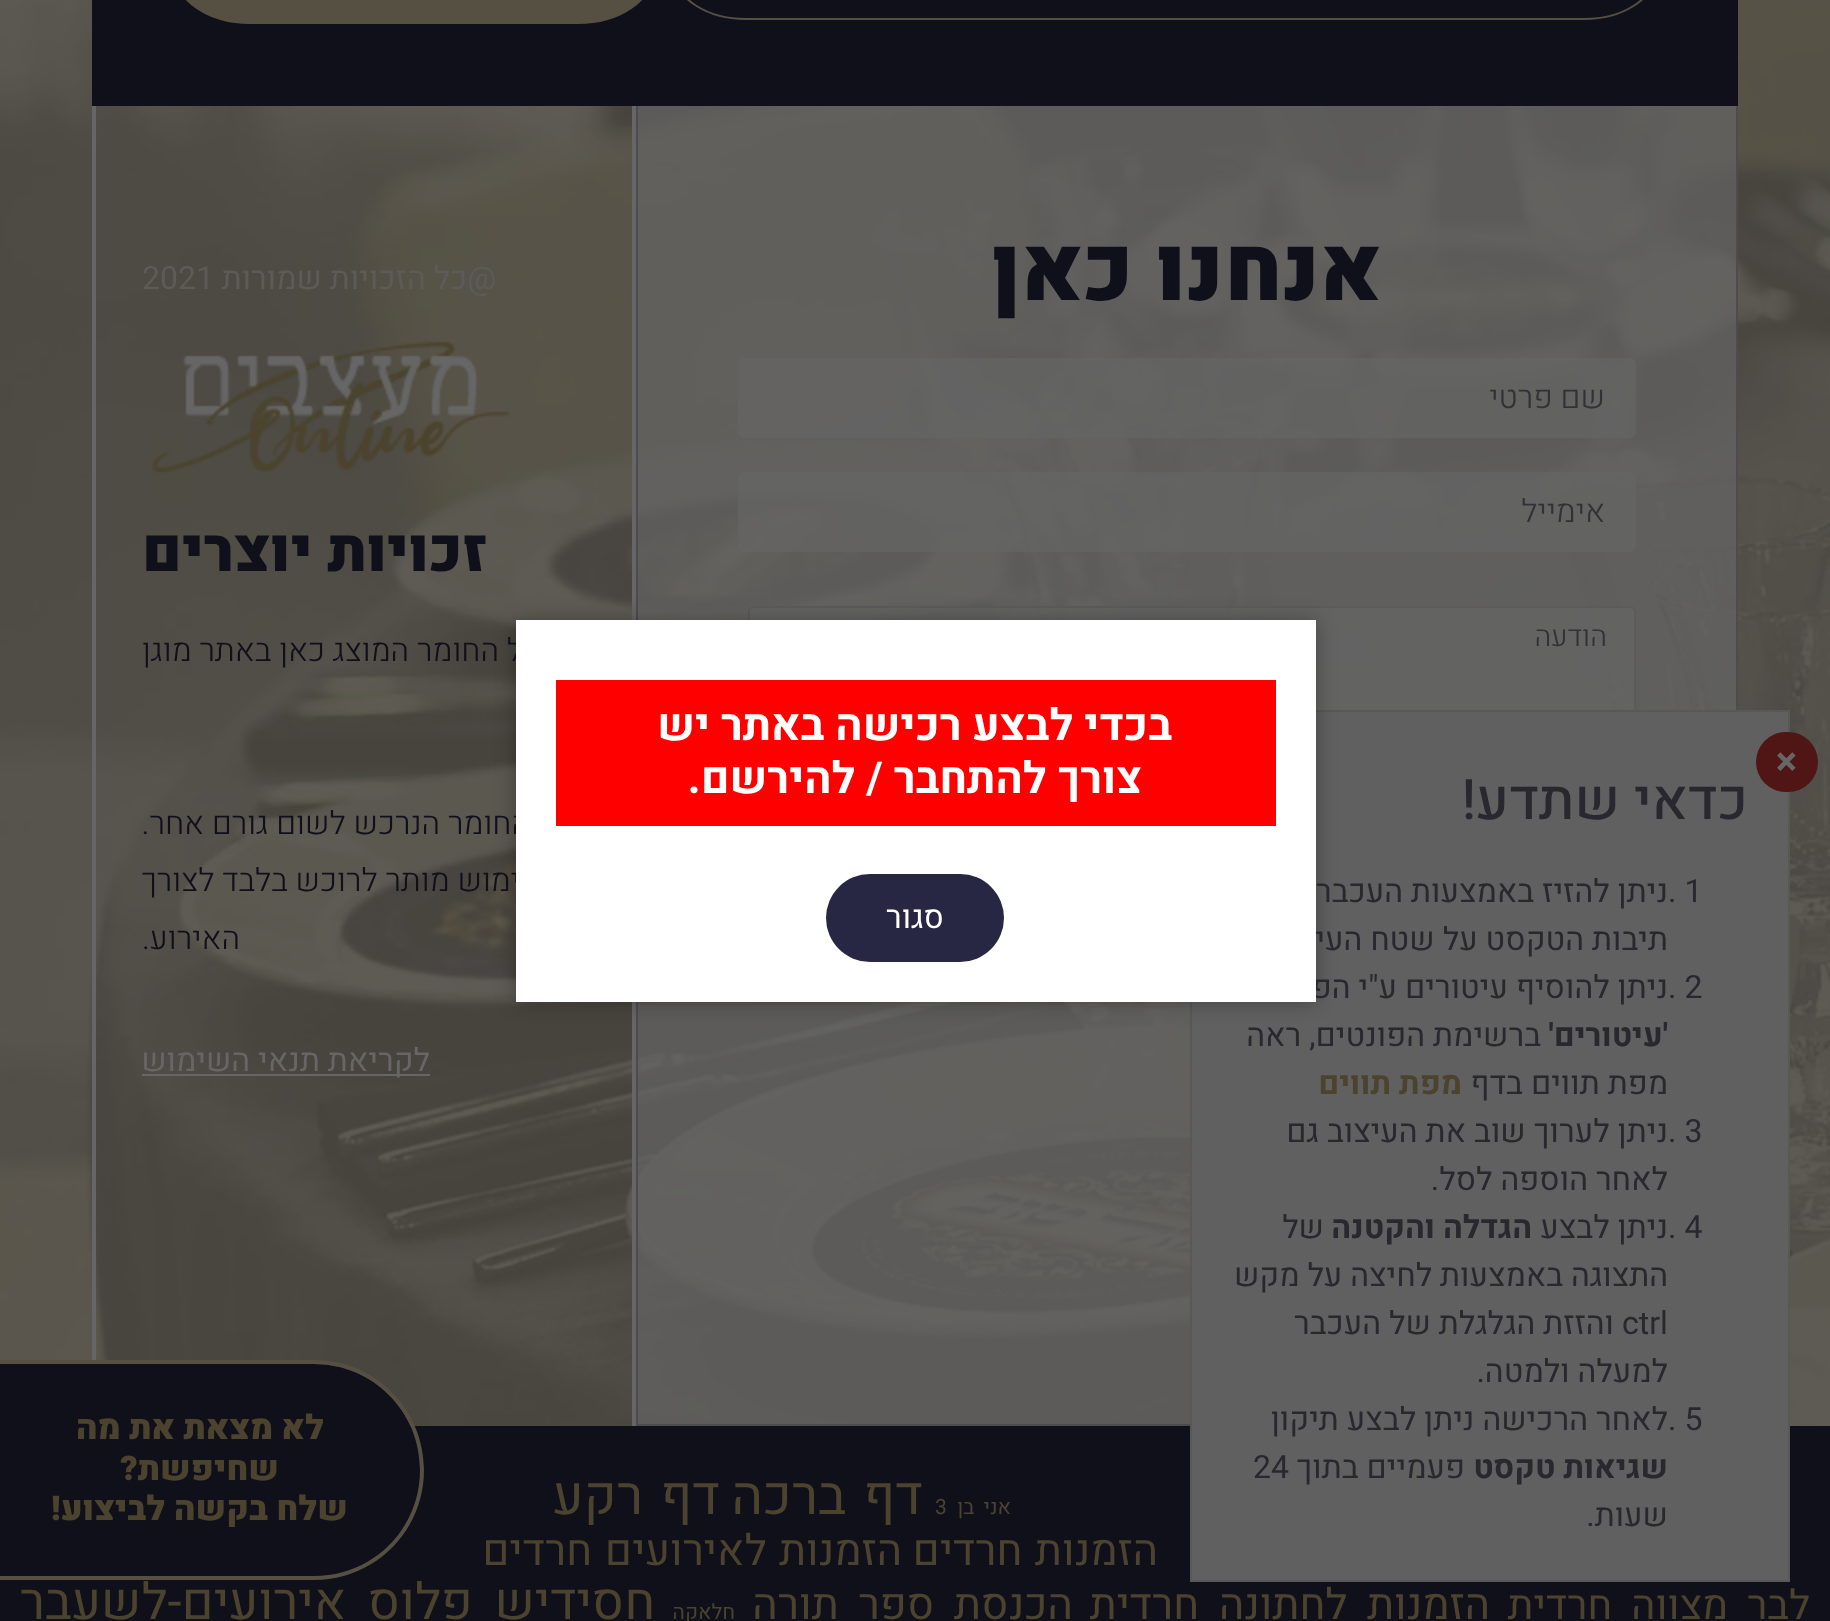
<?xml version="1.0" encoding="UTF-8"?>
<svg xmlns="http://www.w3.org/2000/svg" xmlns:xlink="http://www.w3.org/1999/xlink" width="1830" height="1621">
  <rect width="100%" height="100%" fill="#ffffff" />
  <image x="0" y="0" width="1830" height="1426" xlink:href="image1.png" />
  <rect x="638" y="106" width="1098" height="1318" fill="#666666" fill-opacity="0.69" />
  <rect x="637" y="-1" width="1100" height="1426" fill="none" stroke="#4c4c4c" stroke-width="2" />
  <rect x="92" width="1646" height="106" fill="#10101b" />
  <rect x="675" y="-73" width="980" height="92" rx="71" fill="none" stroke="#565042" stroke-width="2" />
  <rect x="176" y="-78" width="476" height="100" rx="74" fill="#565042" stroke="#565042" stroke-width="4" />
  <rect x="738" y="358" width="898" height="80" rx="6" fill="#666666" fill-opacity="0.64" />
  <rect x="738" y="472" width="898" height="80" rx="6" fill="#666666" fill-opacity="0.64" />
  <rect x="749" y="607" width="886" height="158" rx="5" fill="#666666" fill-opacity="0.64" stroke="#5b5b5b" stroke-width="2" />
  <rect x="632" y="106" width="4" height="1320" fill="#666666" />
  <rect x="92" y="106" width="4" height="1254" fill="#666666" />
  <image x="151" y="341" width="360" height="132" xlink:href="image2.png" />
  <rect x="142" y="1074" width="288" height="2" fill="#666666" />
  <rect y="1426" width="1830" height="195" fill="#10101b" />
  <rect x="1191" y="711" width="598" height="870" fill="#606060" stroke="#585858" stroke-width="2" />
  <rect x="1756" y="732" width="62" height="60" rx="30" fill="#501515" />
  <rect x="516" y="620" width="800" height="382" fill="#000000" fill-opacity="0.3" filter="blur(10px)" />
  <path d="M 0 1364 h 314 c 58.5 0 106 47.5 106 106 c 0 58.5 -47.5 106 -106 106 h -314 z" fill="#10101b" />
  <path d="M 0 1360 h 314 c 61 0 110 49 110 110 c 0 61 -49 110 -110 110 h -314 z m 0 4 h 314 c 59 0 106 47 106 106 c 0 59 -47 106 -106 106 h -314 z" fill="#565042" fill-rule="evenodd" />
  <text x="1382" y="300" style="font-family: Heebo; font-size: 90px; font-weight: 900; direction: rtl; fill: #10101b">אנחנו כאן</text>
  <text x="1605" y="408" style="font-family: Heebo; font-size: 32px; font-weight: 300; direction: rtl; fill: #313137">שם פרטי</text>
  <text x="1605" y="522" style="font-family: Heebo; font-size: 32px; font-weight: 300; direction: rtl; fill: #313137">אימייל</text>
  <text x="1607" y="646" style="font-family: Heebo; font-size: 29px; font-weight: 300; direction: rtl; fill: #313137">הודעה</text>
  <text x="496" y="289" style="font-family: Heebo; font-size: 32px; direction: rtl; fill: #5c5b58">@כל הזכויות שמורות</text>
  <text x="142" y="289" style="font-family: Heebo; font-size: 32px; fill: #5c5b58">2021</text>
  <text x="487" y="571" style="font-family: Heebo; font-size: 60px; font-weight: 900; direction: rtl; fill: #10101b">זכויות יוצרים</text>
  <text x="540" y="661" style="font-family: Heebo; font-size: 32px; font-weight: 300; direction: rtl; fill: #10101b">כל החומר המוצג כאן באתר מוגן</text>
  <text x="530" y="834" style="font-family: Heebo; font-size: 32px; font-weight: 300; direction: rtl; fill: #10101b">החומר הנרכש לשום גורם אחר.</text>
  <text x="563" y="891" style="font-family: Heebo; font-size: 32px; font-weight: 300; direction: rtl; fill: #10101b">השימוש מותר לרוכש בלבד לצורך</text>
  <text x="240" y="949" style="font-family: Heebo; font-size: 32px; font-weight: 300; direction: rtl; fill: #10101b">האירוע.</text>
  <text x="430" y="1071" style="font-family: Heebo; font-size: 32px; direction: rtl; fill: #666666">לקריאת תנאי השימוש</text>
  <text x="1011" y="1514" word-spacing="4" style="font-family: Heebo; font-size: 21px; direction: rtl; fill: #4b432e">אני בן</text>
  <text x="935" y="1514" style="font-family: Heebo; font-size: 21px; fill: #4b432e">3</text>
  <text x="923" y="1514" word-spacing="4" style="font-family: Heebo; font-size: 53.5px; direction: rtl; fill: #4b432e">דף ברכה</text>
  <text x="720" y="1514" word-spacing="4" style="font-family: Heebo; font-size: 53.5px; direction: rtl; fill: #4b432e">דף רקע</text>
  <text x="1158" y="1565" word-spacing="2" style="font-family: Heebo; font-size: 43px; direction: rtl; fill: #4b432e">הזמנות חרדים</text>
  <text x="902" y="1565" word-spacing="2" style="font-family: Heebo; font-size: 43px; direction: rtl; fill: #4b432e">הזמנות לאירועים חרדים</text>
  <text x="1810" y="1619" word-spacing="9" style="font-family: Heebo; font-size: 41px; direction: rtl; fill: #4b432e">לבר מצווה חרדית</text>
  <text x="1490" y="1619" word-spacing="9" style="font-family: Heebo; font-size: 43px; direction: rtl; fill: #4b432e">הזמנות לחתונה חרדית</text>
  <text x="1073" y="1619" word-spacing="9" style="font-family: Heebo; font-size: 43.25px; direction: rtl; fill: #4b432e">הכנסת ספר תורה</text>
  <text x="735" y="1619" style="font-family: Heebo; font-size: 21px; direction: rtl; fill: #4b432e">חלאקה</text>
  <text x="655" y="1619" word-spacing="9" style="font-family: Heebo; font-size: 50.75px; direction: rtl; fill: #4b432e">חסידיש פלוס אירועים-לשעבר</text>
  <text x="1775" y="775" style="font-family: Heebo; font-size: 40px; font-weight: bold; fill: #666666">×</text>
  <text x="1748" y="819" style="font-family: Heebo; font-size: 56px; font-weight: 500; direction: rtl; fill: #29282e">כדאי שתדע!</text>
  <text x="1668" y="902" style="font-family: Heebo; font-size: 32px; fill: #29282e">. 1</text>
  <text x="1668" y="902" style="font-family: Heebo; font-size: 32px; direction: rtl; fill: #29282e">ניתן להזיז באמצעות העכבר את</text>
  <text x="1668" y="950" style="font-family: Heebo; font-size: 32px; direction: rtl; fill: #29282e">תיבות הטקסט על שטח העיצוב.</text>
  <text x="1668" y="998" style="font-family: Heebo; font-size: 32px; fill: #29282e">. 2</text>
  <text x="1668" y="998" style="font-family: Heebo; font-size: 32px; direction: rtl; fill: #29282e">ניתן להוסיף עיטורים ע"י הפונט</text>
  <text x="1668" y="1046" style="font-family: Heebo; font-size: 32px; font-weight: bold; direction: rtl; fill: #29282e">'עיטורים'</text>
  <text x="1541" y="1046" style="font-family: Heebo; font-size: 32px; direction: rtl; fill: #29282e">ברשימת הפונטים, ראה</text>
  <text x="1668" y="1094" style="font-family: Heebo; font-size: 32px; direction: rtl; fill: #29282e">מפת תווים בדף</text>
  <text x="1462" y="1094" style="font-family: Heebo; font-size: 32px; font-weight: bold; direction: rtl; fill: #4b432e">מפת תווים</text>
  <text x="1668" y="1142" style="font-family: Heebo; font-size: 32px; fill: #29282e">. 3</text>
  <text x="1668" y="1142" style="font-family: Heebo; font-size: 32px; direction: rtl; fill: #29282e">ניתן לערוך שוב את העיצוב גם</text>
  <text x="1668" y="1190" style="font-family: Heebo; font-size: 32px; direction: rtl; fill: #29282e">לאחר הוספה לסל.</text>
  <text x="1668" y="1238" style="font-family: Heebo; font-size: 32px; fill: #29282e">. 4</text>
  <text x="1668" y="1238" style="font-family: Heebo; font-size: 32px; direction: rtl; fill: #29282e">ניתן לבצע</text>
  <text x="1532" y="1238" style="font-family: Heebo; font-size: 32px; font-weight: bold; direction: rtl; fill: #29282e">הגדלה והקטנה</text>
  <text x="1324" y="1238" style="font-family: Heebo; font-size: 32px; direction: rtl; fill: #29282e">של</text>
  <text x="1668" y="1286" style="font-family: Heebo; font-size: 32px; direction: rtl; fill: #29282e">התצוגה באמצעות לחיצה על מקש</text>
  <text x="1622" y="1334" style="font-family: Heebo; font-size: 32px; fill: #29282e">ctrl</text>
  <text x="1614" y="1334" style="font-family: Heebo; font-size: 32px; direction: rtl; fill: #29282e">והזזת הגלגלת של העכבר</text>
  <text x="1668" y="1382" style="font-family: Heebo; font-size: 32px; direction: rtl; fill: #29282e">למעלה ולמטה.</text>
  <text x="1668" y="1430" style="font-family: Heebo; font-size: 32px; fill: #29282e">. 5</text>
  <text x="1668" y="1430" style="font-family: Heebo; font-size: 32px; direction: rtl; fill: #29282e">לאחר הרכישה ניתן לבצע תיקון</text>
  <text x="1668" y="1478" style="font-family: Heebo; font-size: 32px; font-weight: bold; direction: rtl; fill: #29282e">שגיאות טקסט</text>
  <text x="1465" y="1478" style="font-family: Heebo; font-size: 32px; direction: rtl; fill: #29282e">פעמיים בתוך</text>
  <text x="1253" y="1478" style="font-family: Heebo; font-size: 32px; fill: #29282e">24</text>
  <text x="1668" y="1526" style="font-family: Heebo; font-size: 32px; direction: rtl; fill: #29282e">שעות.</text>
  <rect x="516" y="620" width="800" height="382" fill="#ffffff" />
  <rect x="556" y="680" width="720" height="146" fill="#ff0000" />
  <text x="1172" y="740" style="font-family: Heebo; font-size: 44px; font-weight: bold; direction: rtl; fill: #ffffff">בכדי לבצע רכישה באתר יש</text>
  <text x="1142" y="793" style="font-family: Heebo; font-size: 44px; font-weight: bold; direction: rtl; fill: #ffffff">צורך להתחבר / להירשם.</text>
  <rect x="826" y="874" width="178" height="88" rx="44" fill="#282743" />
  <text x="944" y="928" style="font-family: Heebo; font-size: 32px; direction: rtl; fill: #ffffff">סגור</text>
  <text x="324" y="1439" style="font-family: Heebo; font-size: 34px; font-weight: 900; direction: rtl; fill: #4b432e">לא מצאת את מה</text>
  <text x="279" y="1480" style="font-family: Heebo; font-size: 34px; font-weight: 900; direction: rtl; fill: #4b432e">שחיפשת?</text>
  <text x="348" y="1520" style="font-family: Heebo; font-size: 34px; font-weight: 900; direction: rtl; fill: #4b432e">שלח בקשה לביצוע!</text>
</svg>
